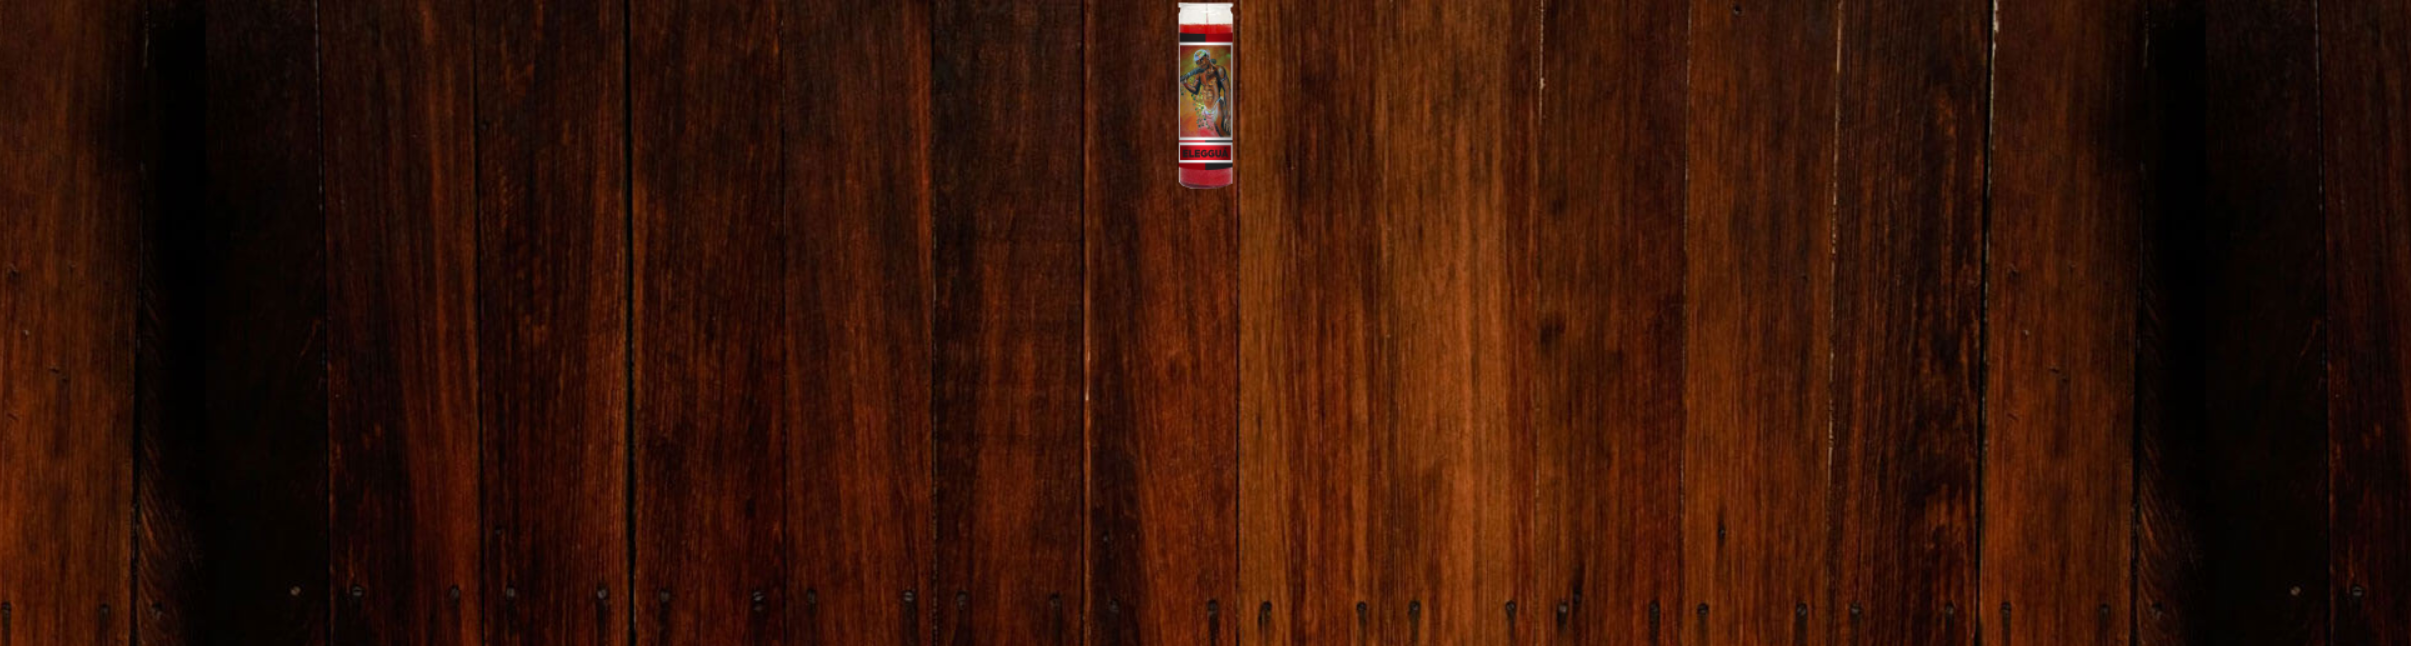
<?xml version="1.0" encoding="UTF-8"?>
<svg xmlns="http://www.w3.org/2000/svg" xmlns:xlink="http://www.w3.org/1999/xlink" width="2411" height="646">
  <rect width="100%" height="100%" fill="#ffffff" />
  <image x="0" y="0" width="2411" height="646" xlink:href="image1.png" />
  <image x="1177" y="2" width="57" height="187" xlink:href="image2.png" />
</svg>
